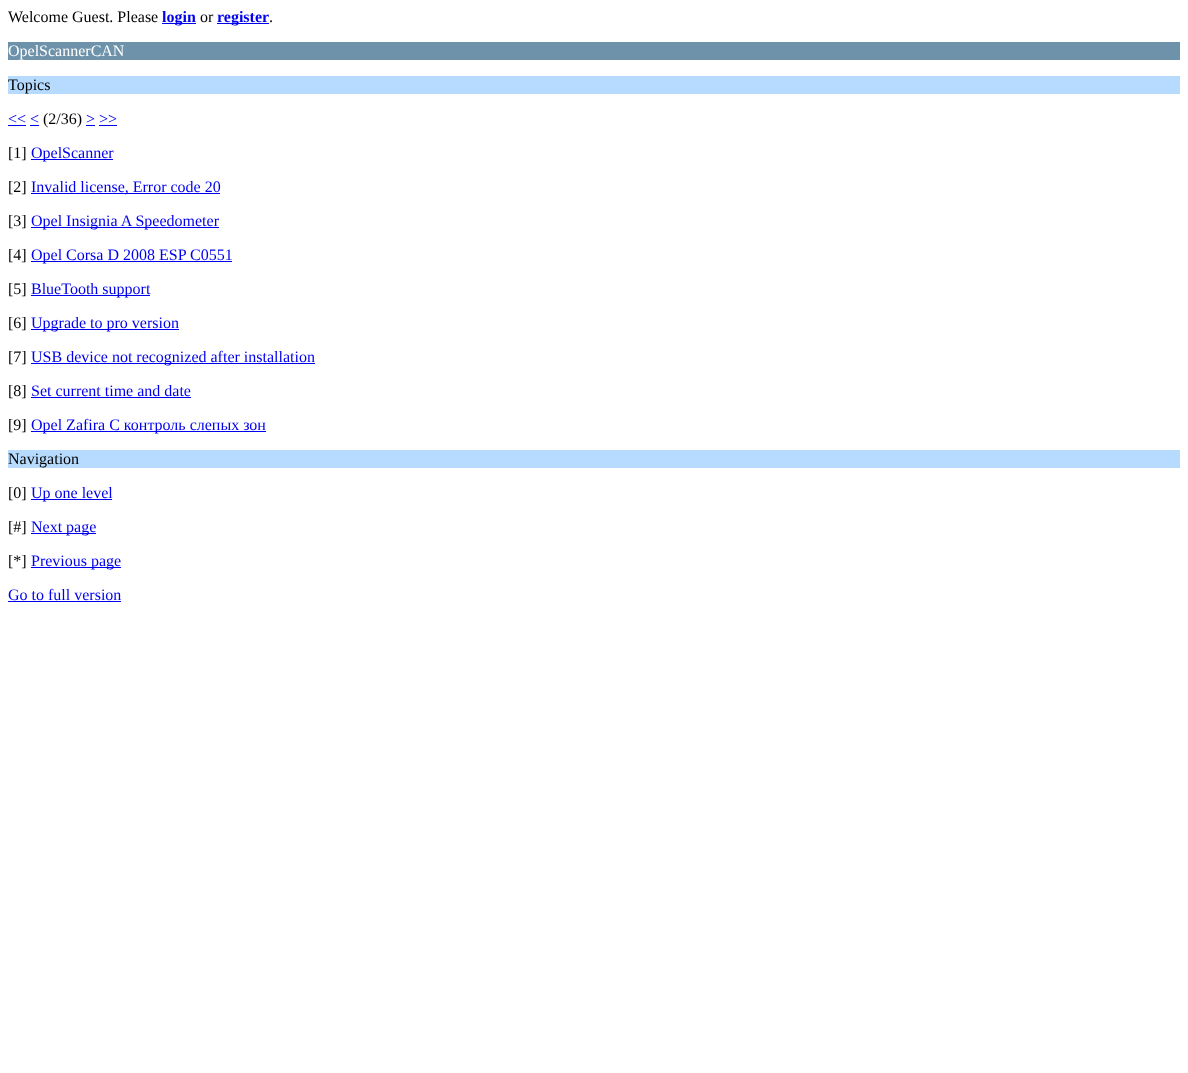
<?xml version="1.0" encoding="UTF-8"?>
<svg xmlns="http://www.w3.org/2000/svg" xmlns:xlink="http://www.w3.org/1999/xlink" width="1188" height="1073">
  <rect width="100%" height="100%" fill="#ffffff" />
  <rect x="162" y="23" width="34" height="1" fill="#0000ee" />
  <rect x="217" y="23" width="52" height="1" fill="#0000ee" />
  <rect x="8" y="42" width="1172" height="18" fill="#6d92aa" />
  <rect x="8" y="76" width="1172" height="18" fill="#b6dbff" />
  <rect x="8" y="125" width="18" height="1" fill="#0000ee" />
  <rect x="86" y="125" width="9" height="1" fill="#0000ee" />
  <rect x="30" y="125" width="9" height="1" fill="#0000ee" />
  <rect x="99" y="125" width="18" height="1" fill="#0000ee" />
  <rect x="31" y="159" width="82" height="1" fill="#0000ee" />
  <rect x="31" y="193" width="189" height="1" fill="#0000ee" />
  <rect x="31" y="227" width="188" height="1" fill="#0000ee" />
  <rect x="31" y="261" width="201" height="1" fill="#0000ee" />
  <rect x="31" y="295" width="119" height="1" fill="#0000ee" />
  <rect x="31" y="329" width="148" height="1" fill="#0000ee" />
  <rect x="31" y="363" width="284" height="1" fill="#0000ee" />
  <rect x="31" y="397" width="160" height="1" fill="#0000ee" />
  <rect x="31" y="431" width="235" height="1" fill="#0000ee" />
  <rect x="8" y="450" width="1172" height="18" fill="#b6dbff" />
  <rect x="31" y="499" width="81" height="1" fill="#0000ee" />
  <rect x="31" y="533" width="65" height="1" fill="#0000ee" />
  <rect x="31" y="567" width="90" height="1" fill="#0000ee" />
  <rect x="8" y="601" width="113" height="1" fill="#0000ee" />
  <text x="8" y="22" style="font-family: Liberation Serif; font-size: 16px; fill: #000000">Welcome Guest. Please</text>
  <text x="162" y="22" style="font-family: Liberation Serif; font-size: 16px; font-weight: bold; fill: #0000ee">login</text>
  <text x="200" y="22" style="font-family: Liberation Serif; font-size: 16px; fill: #000000">or</text>
  <text x="217" y="22" style="font-family: Liberation Serif; font-size: 16px; font-weight: bold; fill: #0000ee">register</text>
  <text x="269" y="22" style="font-family: Liberation Serif; font-size: 16px; fill: #000000">.</text>
  <text x="8" y="56" style="font-family: Liberation Serif; font-size: 16px; fill: #ffffff">OpelScannerCAN</text>
  <text x="8" y="90" style="font-family: Liberation Serif; font-size: 16px; fill: #000000">Topics</text>
  <text x="8" y="124" style="font-family: Liberation Serif; font-size: 16px; fill: #0000ee">&lt;&lt; &lt;</text>
  <text x="43" y="124" style="font-family: Liberation Serif; font-size: 16px; fill: #000000">(2/36)</text>
  <text x="86" y="124" style="font-family: Liberation Serif; font-size: 16px; fill: #0000ee">&gt; &gt;&gt;</text>
  <text x="8" y="158" style="font-family: Liberation Serif; font-size: 16px; fill: #000000">[1]</text>
  <text x="31" y="158" style="font-family: Liberation Serif; font-size: 16px; fill: #0000ee">OpelScanner</text>
  <text x="8" y="192" style="font-family: Liberation Serif; font-size: 16px; fill: #000000">[2]</text>
  <text x="31" y="192" style="font-family: Liberation Serif; font-size: 16px; fill: #0000ee">Invalid license, Error code 20</text>
  <text x="8" y="226" style="font-family: Liberation Serif; font-size: 16px; fill: #000000">[3]</text>
  <text x="31" y="226" style="font-family: Liberation Serif; font-size: 16px; fill: #0000ee">Opel Insignia A Speedometer</text>
  <text x="8" y="260" style="font-family: Liberation Serif; font-size: 16px; fill: #000000">[4]</text>
  <text x="31" y="260" style="font-family: Liberation Serif; font-size: 16px; fill: #0000ee">Opel Corsa D 2008 ESP C0551</text>
  <text x="8" y="294" style="font-family: Liberation Serif; font-size: 16px; fill: #000000">[5]</text>
  <text x="31" y="294" style="font-family: Liberation Serif; font-size: 16px; fill: #0000ee">BlueTooth support</text>
  <text x="8" y="328" style="font-family: Liberation Serif; font-size: 16px; fill: #000000">[6]</text>
  <text x="31" y="328" style="font-family: Liberation Serif; font-size: 16px; fill: #0000ee">Upgrade to pro version</text>
  <text x="8" y="362" style="font-family: Liberation Serif; font-size: 16px; fill: #000000">[7]</text>
  <text x="31" y="362" style="font-family: Liberation Serif; font-size: 16px; fill: #0000ee">USB device not recognized after installation</text>
  <text x="8" y="396" style="font-family: Liberation Serif; font-size: 16px; fill: #000000">[8]</text>
  <text x="31" y="396" style="font-family: Liberation Serif; font-size: 16px; fill: #0000ee">Set current time and date</text>
  <text x="8" y="430" style="font-family: Liberation Serif; font-size: 16px; fill: #000000">[9]</text>
  <text x="31" y="430" style="font-family: Liberation Serif; font-size: 16px; fill: #0000ee">Opel Zafira C контроль слепых зон</text>
  <text x="8" y="464" style="font-family: Liberation Serif; font-size: 16px; fill: #000000">Navigation</text>
  <text x="8" y="498" style="font-family: Liberation Serif; font-size: 16px; fill: #000000">[0]</text>
  <text x="31" y="498" style="font-family: Liberation Serif; font-size: 16px; fill: #0000ee">Up one level</text>
  <text x="8" y="532" style="font-family: Liberation Serif; font-size: 16px; fill: #000000">[#]</text>
  <text x="31" y="532" style="font-family: Liberation Serif; font-size: 16px; fill: #0000ee">Next page</text>
  <text x="8" y="566" style="font-family: Liberation Serif; font-size: 16px; fill: #000000">[*]</text>
  <text x="31" y="566" style="font-family: Liberation Serif; font-size: 16px; fill: #0000ee">Previous page</text>
  <text x="8" y="600" style="font-family: Liberation Serif; font-size: 16px; fill: #0000ee">Go to full version</text>
</svg>
